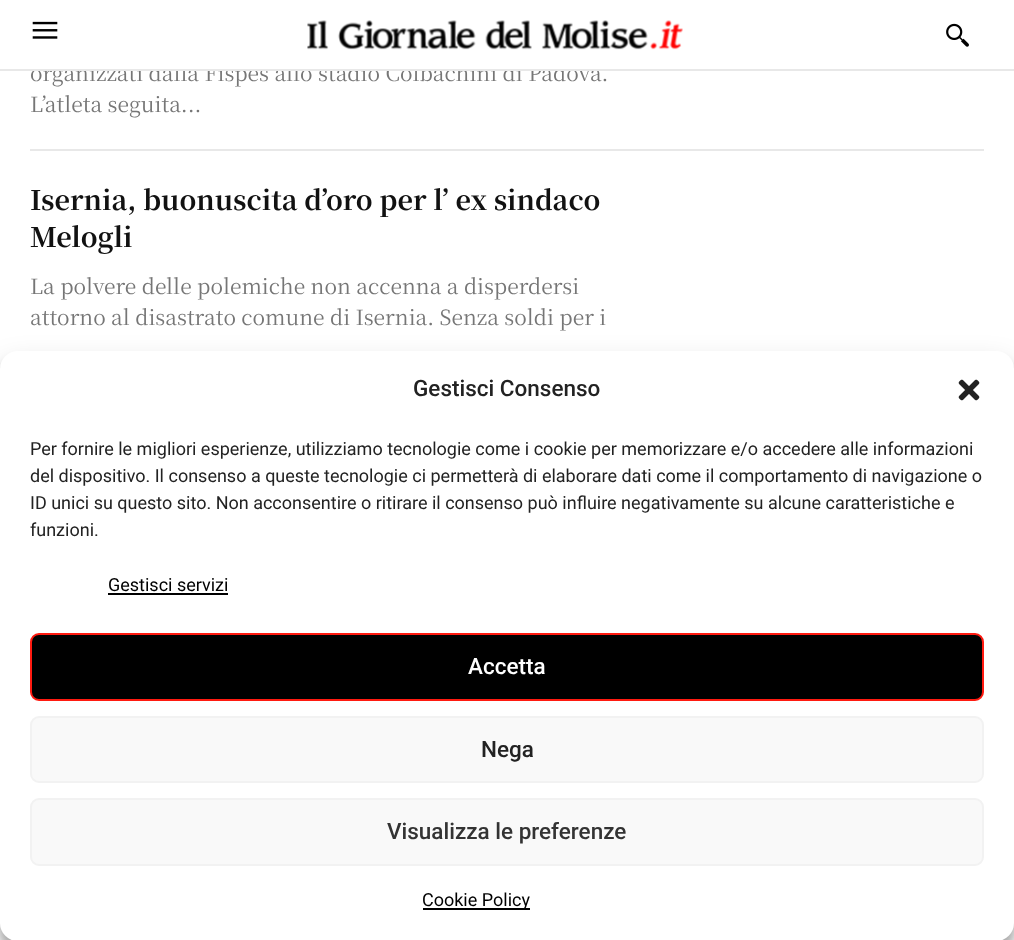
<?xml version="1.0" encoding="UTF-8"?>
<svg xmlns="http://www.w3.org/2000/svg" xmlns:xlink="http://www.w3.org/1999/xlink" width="1014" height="940">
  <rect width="100%" height="100%" fill="#ffffff" />
  <image x="32" y="21" width="26" height="18" xlink:href="image1.png" />
  <image x="307" y="20" width="376" height="30" xlink:href="image2.png" />
  <image x="946" y="23" width="23" height="24" xlink:href="image3.png" />
  <rect x="30" y="149" width="954" height="2" fill="#e8e8e8" />
  <rect y="360" width="1014" height="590" rx="18" fill="#000000" fill-opacity="0.23" filter="blur(4.5px)" />
  <rect y="366" width="1014" height="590" rx="18" fill="#000000" fill-opacity="0.19" filter="blur(15px)" />
  <rect y="351" width="1014" height="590" rx="18" fill="#ffffff" />
  <image x="958" y="379" width="22" height="22" xlink:href="image4.png" />
  <rect x="108" y="593" width="120" height="2" fill="#000000" />
  <rect x="31" y="634" width="952" height="66" rx="8" fill="#000000" stroke="#ff1a10" stroke-width="2" />
  <rect x="31" y="717" width="952" height="65" rx="8" fill="#f9f9f9" stroke="#f2f2f2" stroke-width="2" />
  <rect x="31" y="799" width="952" height="66" rx="8" fill="#f9f9f9" stroke="#f2f2f2" stroke-width="2" />
  <rect x="423" y="908" width="107" height="2" fill="#000000" />
  <text x="30" y="81" style="font-family: Noto Serif JP; font-size: 21px; fill: #767676">organizzati dalla Fispes allo stadio Colbachini di Padova.</text>
  <rect y="69" width="1014" height="2" fill="#e8e8e8" />
  <rect x="91" y="64" width="473" height="5" fill="#ffffff" />
  <text x="30" y="112" style="font-family: Noto Serif JP; font-size: 21px; fill: #767676">L’atleta seguita...</text>
  <text x="30" y="210" style="font-family: Noto Serif JP; font-size: 27px; font-weight: bold; fill: #111111">Isernia, buonuscita d’oro per l’ ex sindaco</text>
  <text x="30" y="247" style="font-family: Noto Serif JP; font-size: 27px; font-weight: bold; fill: #111111">Melogli</text>
  <text x="30" y="294" style="font-family: Noto Serif JP; font-size: 21px; fill: #767676">La polvere delle polemiche non accenna a disperdersi</text>
  <text x="30" y="325" style="font-family: Noto Serif JP; font-size: 21px; fill: #767676">attorno al disastrato comune di Isernia. Senza soldi per i</text>
  <text x="413" y="396" style="font-family: Roboto; font-size: 22.5px; font-weight: 500; fill: #222222">Gestisci Consenso</text>
  <text x="30" y="455" style="font-family: Roboto; font-size: 18px; fill: #222222">Per fornire le migliori esperienze, utilizziamo tecnologie come i cookie per memorizzare e/o accedere alle informazioni</text>
  <text x="30" y="482" style="font-family: Roboto; font-size: 18px; fill: #222222">del dispositivo. Il consenso a queste tecnologie ci permetterà di elaborare dati come il comportamento di navigazione o</text>
  <text x="30" y="509" style="font-family: Roboto; font-size: 18px; fill: #222222">ID unici su questo sito. Non acconsentire o ritirare il consenso può influire negativamente su alcune caratteristiche e</text>
  <text x="30" y="536" style="font-family: Roboto; font-size: 18px; fill: #222222">funzioni.</text>
  <text x="108" y="591" style="font-family: Roboto; font-size: 18px; fill: #000000">Gestisci servizi</text>
  <text x="468" y="674" style="font-family: Roboto; font-size: 22.5px; font-weight: 500; fill: #ffffff">Accetta</text>
  <text x="481" y="757" style="font-family: Roboto; font-size: 22.5px; font-weight: 500; fill: #222222">Nega</text>
  <text x="387" y="839" style="font-family: Roboto; font-size: 22.5px; font-weight: 500; fill: #333333">Visualizza le preferenze</text>
  <text x="422" y="906" style="font-family: Roboto; font-size: 18px; fill: #000000">Cookie Policy</text>
</svg>
